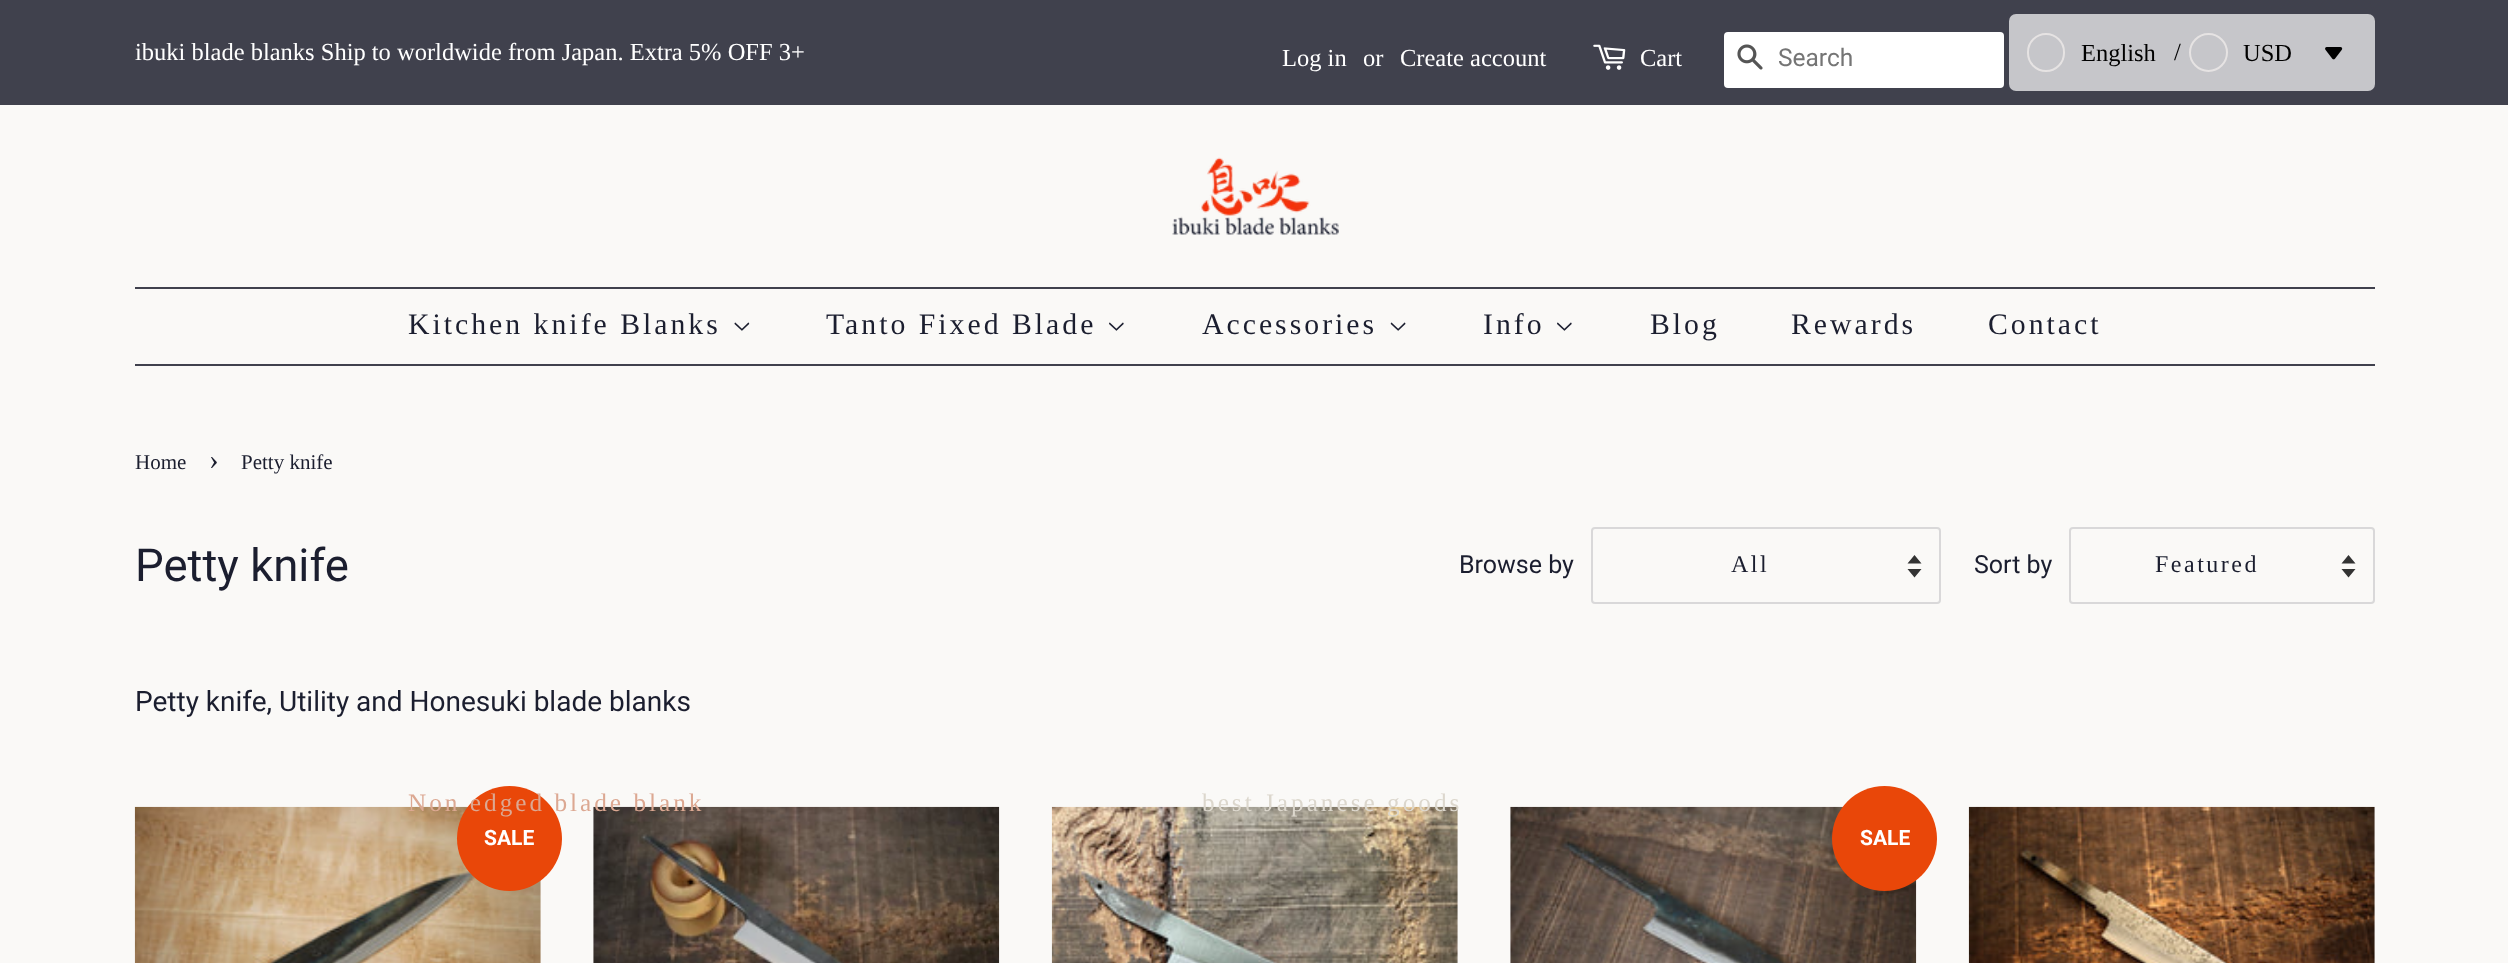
<?xml version="1.0" encoding="UTF-8"?>
<svg xmlns="http://www.w3.org/2000/svg" xmlns:xlink="http://www.w3.org/1999/xlink" width="2508" height="963">
  <rect width="100%" height="100%" fill="#faf9f7" />
  <rect width="2508" height="105" fill="#40414d" />
  <image x="1593" y="44" width="33" height="26" xlink:href="image1.png" />
  <rect x="1724" y="32" width="280" height="56" rx="4" fill="#ffffff" />
  <image x="1737" y="44" width="26" height="26" xlink:href="image2.png" />
  <rect x="2009" y="14" width="366" height="77" rx="7" fill="#c6c6ca" />
  <rect x="2028" y="34" width="36" height="37" rx="18" fill="none" stroke="#e6e3e3" stroke-width="2" />
  <circle cx="2208.5" cy="52.5" r="18.5" fill="none" stroke="#e6e3e3" stroke-width="2" />
  <image x="2325" y="47" width="18" height="13" xlink:href="image3.png" />
  <image x="1172" y="157" width="167" height="78" xlink:href="image4.png" />
  <rect x="135" y="287" width="2240" height="2" fill="#40414d" />
  <rect x="135" y="364" width="2240" height="2" fill="#40414d" />
  <image x="734" y="322" width="16" height="9" xlink:href="image5.png" />
  <image x="1109" y="322" width="15" height="9" xlink:href="image6.png" />
  <image x="1390" y="322" width="16" height="9" xlink:href="image7.png" />
  <image x="1557" y="322" width="15" height="9" xlink:href="image6.png" />
  <path d="M 1907.5 569 l 7 8.5 l 7 -8.5 z m 7 -14 l -7 8.5 h 14 z" fill="#333333" />
  <rect x="1592" y="528" width="348" height="75" rx="3" fill="none" stroke="#d9d8d9" stroke-width="2" />
  <path d="M 2341.5 569 l 7 8.5 l 7 -8.5 z m 7 -14 l -7 8.5 h 14 z" fill="#333333" />
  <rect x="2070" y="528" width="304" height="75" rx="3" fill="none" stroke="#d9d8d9" stroke-width="2" />
  <image x="134" y="806" width="407" height="157" xlink:href="image8.png" />
  <circle cx="509.5" cy="838.5" r="52.5" fill="#e94709" />
  <image x="593" y="806" width="407" height="157" xlink:href="image9.png" />
  <image x="1051" y="806" width="407" height="157" xlink:href="image10.png" />
  <image x="1510" y="806" width="407" height="157" xlink:href="image11.png" />
  <circle cx="1884.5" cy="838.5" r="52.5" fill="#e94709" />
  <image x="1968" y="806" width="407" height="157" xlink:href="image12.png" />
  <text x="135" y="60" style="font-family: Liberation Serif; font-size: 24.5px; fill: #ffffff">ibuki blade blanks Ship to worldwide from Japan. Extra 5% OFF 3+</text>
  <text x="1282" y="66" style="font-family: Liberation Serif; font-size: 24.5px; fill: #ffffff">Log in</text>
  <text x="1363" y="66" style="font-family: Liberation Serif; font-size: 24.5px; fill: #ffffff">or</text>
  <text x="1400" y="66" style="font-family: Liberation Serif; font-size: 24.5px; fill: #ffffff">Create account</text>
  <text x="1640" y="66" style="font-family: Liberation Serif; font-size: 24.5px; fill: #ffffff">Cart</text>
  <text x="1778" y="66" style="font-family: Roboto; font-size: 24.5px; fill: #757575">Search</text>
  <text x="2081" y="61" style="font-family: Liberation Serif; font-size: 24.5px; fill: #000000">English</text>
  <text x="2174" y="60" style="font-family: Liberation Serif; font-size: 24.5px; fill: #000000">/</text>
  <text x="2243" y="61" style="font-family: Liberation Serif; font-size: 24.5px; fill: #000000">USD</text>
  <text x="408" y="334" style="font-family: Liberation Serif; font-size: 29.75px; letter-spacing: 3px; fill: #1b1e2f">Kitchen knife Blanks</text>
  <text x="408" y="811" style="font-family: Liberation Serif; font-size: 25.25px; letter-spacing: 3px; fill: #dca892">Non edged blade blank</text>
  <text x="826" y="334" style="font-family: Liberation Serif; font-size: 29.75px; letter-spacing: 3px; fill: #1b1e2f">Tanto Fixed Blade</text>
  <text x="1202" y="334" style="font-family: Liberation Serif; font-size: 29.75px; letter-spacing: 3px; fill: #1b1e2f">Accessories</text>
  <text x="1202" y="811" style="font-family: Liberation Serif; font-size: 25.25px; letter-spacing: 3px; fill: #dcd7cd">best Japanese goods</text>
  <text x="1483" y="334" style="font-family: Liberation Serif; font-size: 29.75px; letter-spacing: 3px; fill: #1b1e2f">Info</text>
  <text x="1650" y="334" style="font-family: Liberation Serif; font-size: 29.75px; letter-spacing: 3px; fill: #1b1e2f">Blog</text>
  <text x="1791" y="334" style="font-family: Liberation Serif; font-size: 29.75px; letter-spacing: 3px; fill: #1b1e2f">Rewards</text>
  <text x="1988" y="334" style="font-family: Liberation Serif; font-size: 29.75px; letter-spacing: 3px; fill: #1b1e2f">Contact</text>
  <text x="135" y="469" style="font-family: Liberation Serif; font-size: 21px; fill: #1b1e2f">Home</text>
  <text x="209" y="469" style="font-family: Liberation Serif; font-size: 29px; fill: #1b1e2f">›</text>
  <text x="241" y="469" style="font-family: Liberation Serif; font-size: 21px; fill: #1b1e2f">Petty knife</text>
  <text x="135" y="581" style="font-family: Roboto; font-size: 45.5px; fill: #1b1e2f">Petty knife</text>
  <text x="1459" y="573" style="font-family: Roboto; font-size: 25px; fill: #1b1e2f">Browse by</text>
  <text x="1731" y="572" style="font-family: Liberation Serif; font-size: 24px; letter-spacing: 2.5px; fill: #1b1e2f">All</text>
  <text x="1974" y="573" style="font-family: Roboto; font-size: 25px; fill: #1b1e2f">Sort by</text>
  <text x="2155" y="572" style="font-family: Liberation Serif; font-size: 24px; letter-spacing: 2.5px; fill: #1b1e2f">Featured</text>
  <text x="135" y="711" style="font-family: Roboto; font-size: 28px; fill: #1b1e2f">Petty knife, Utility and Honesuki blade blanks</text>
  <text x="484" y="845" style="font-family: Roboto; font-size: 21px; font-weight: bold; fill: #ffffff">SALE</text>
  <text x="1860" y="845" style="font-family: Roboto; font-size: 21px; font-weight: bold; fill: #ffffff">SALE</text>
</svg>
